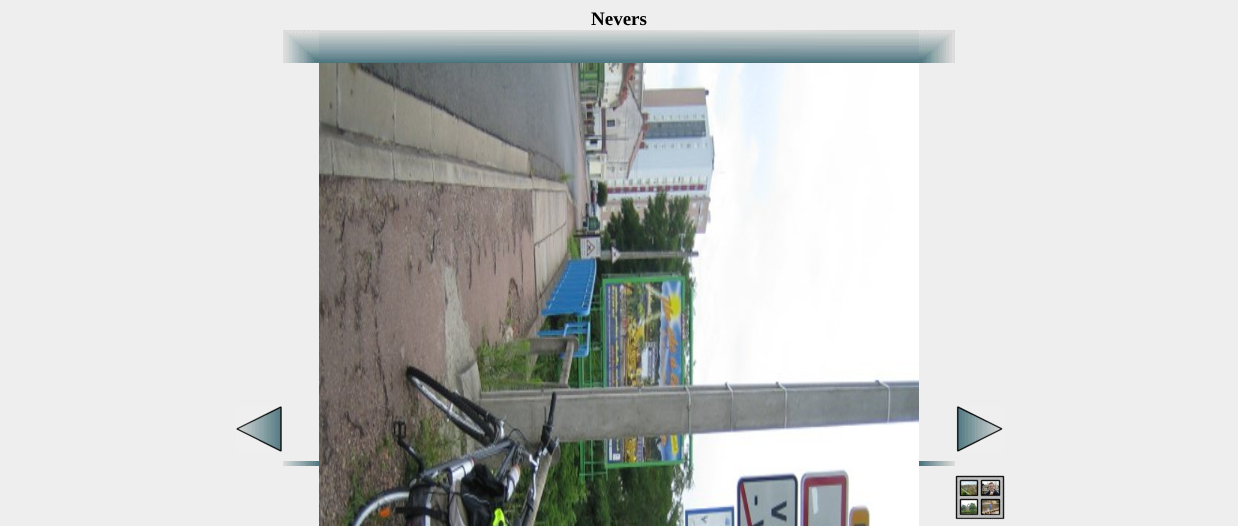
<?xml version="1.0" encoding="UTF-8"?>
<svg xmlns="http://www.w3.org/2000/svg" xmlns:xlink="http://www.w3.org/1999/xlink" width="1238" height="526">
  <rect width="100%" height="100%" fill="#eeeeef" />
  <image x="283" y="30" width="36" height="33" xlink:href="image1.png" />
  <image x="319" y="30" width="600" height="33" xlink:href="image2.png" />
  <image x="919" y="30" width="36" height="33" xlink:href="image3.png" />
  <image x="236" y="406" width="46" height="46" xlink:href="image4.png" />
  <image x="283" y="461" width="36" height="5" xlink:href="image5.png" />
  <image x="319" y="63" width="600" height="463" xlink:href="image6.png" />
  <image x="919" y="461" width="36" height="5" xlink:href="image7.png" />
  <image x="956" y="406" width="47" height="46" xlink:href="image8.png" />
  <image x="955" y="475" width="50" height="45" xlink:href="image9.png" />
  <text x="591" y="25" style="font-family: Liberation Serif; font-size: 19px; font-weight: bold; fill: #000000">Nevers</text>
</svg>
